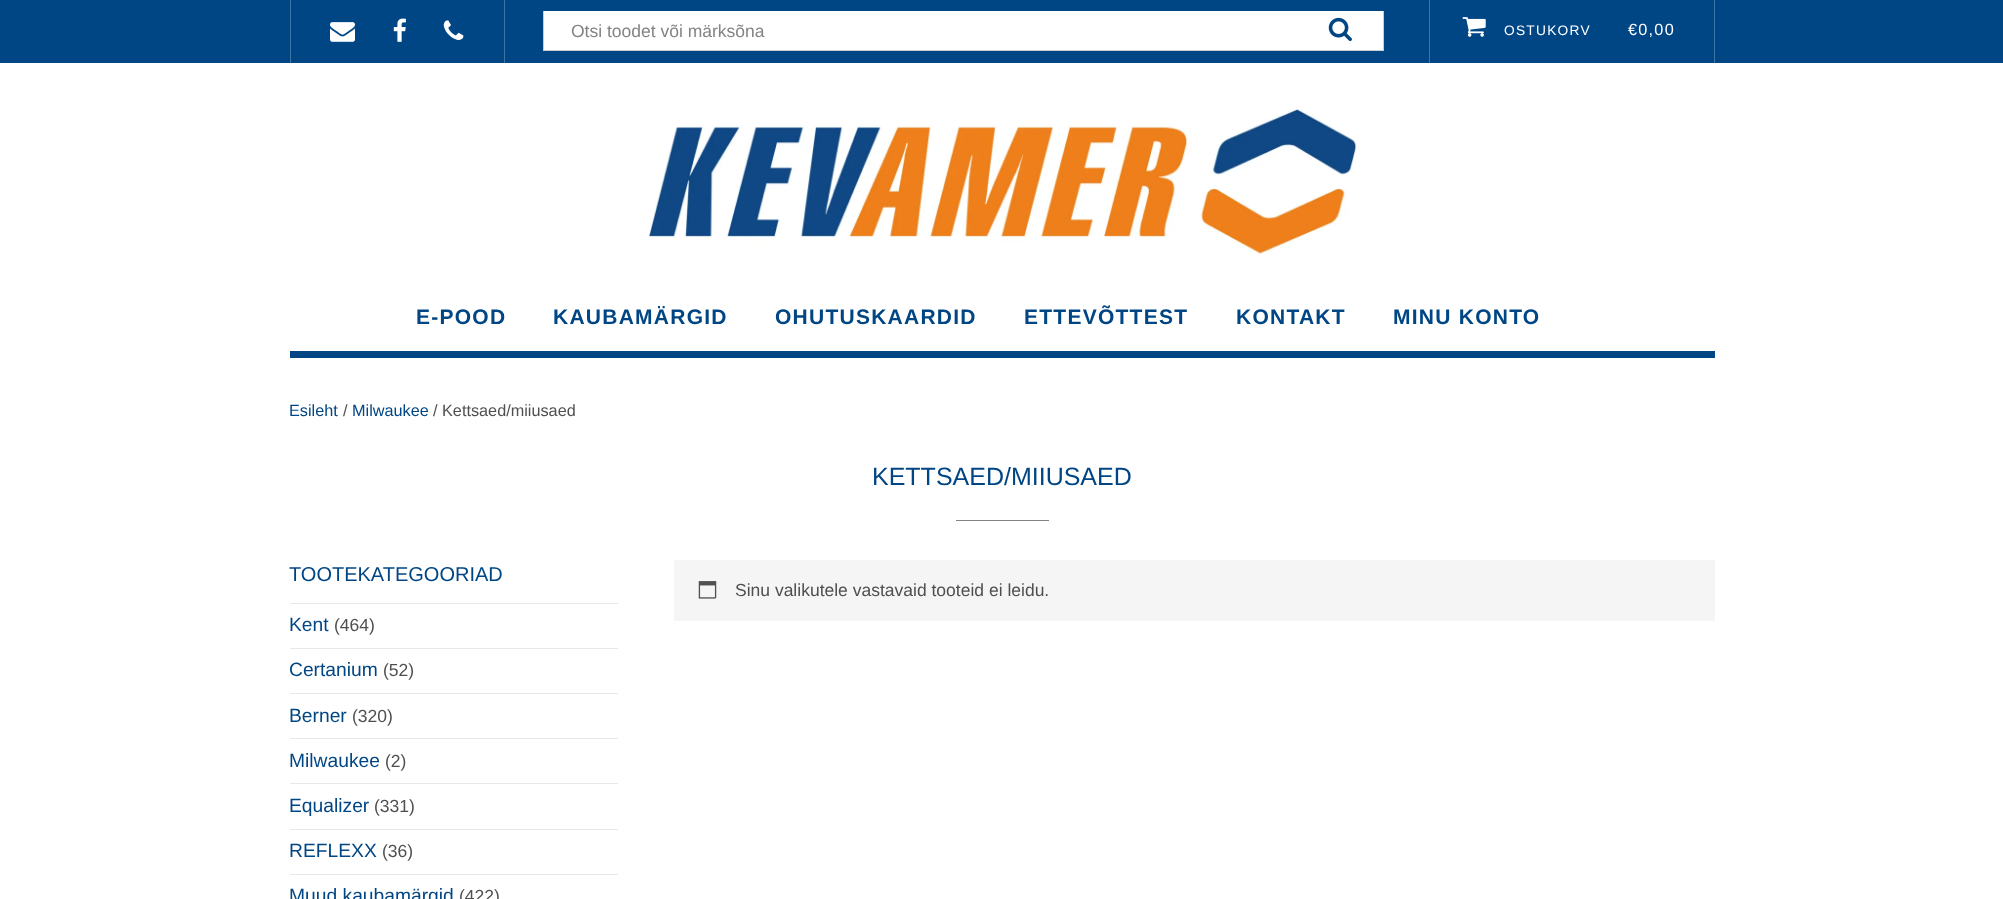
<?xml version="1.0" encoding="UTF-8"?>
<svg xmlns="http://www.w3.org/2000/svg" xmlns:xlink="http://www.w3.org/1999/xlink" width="2003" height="899">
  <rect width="100%" height="100%" fill="#ffffff" />
  <rect width="2003" height="63" fill="#004684" />
  <rect x="290" width="1" height="63" fill="#4074a3" />
  <image x="330" y="22" width="25" height="20" xlink:href="image1.png" />
  <image x="393" y="18" width="13" height="24" xlink:href="image2.png" />
  <image x="443" y="20" width="21" height="20" xlink:href="image3.png" />
  <rect x="1429" width="1" height="63" fill="#4074a3" />
  <rect x="504" width="1" height="63" fill="#4074a3" />
  <rect x="544" y="11" width="839" height="39" fill="#ffffff" />
  <rect x="1383" y="11" width="1" height="40" fill="#cccccc" />
  <rect x="543" y="50" width="841" height="1" fill="#cccccc" />
  <rect x="543" y="11" width="1" height="40" fill="#cccccc" />
  <image x="1328" y="17" width="24" height="25" xlink:href="image4.png" />
  <rect x="1714" width="1" height="63" fill="#4074a3" />
  <image x="1462" y="17" width="24" height="20" xlink:href="image5.png" />
  <image x="649" y="109" width="708" height="145" xlink:href="image6.png" />
  <rect x="290" y="351" width="1425" height="7" fill="#004684" />
  <rect x="956" y="520" width="93" height="1" fill="#828387" />
  <rect x="290" y="603" width="328" height="1" fill="#e8e8e8" />
  <rect x="290" y="648" width="328" height="1" fill="#e8e8e8" />
  <rect x="290" y="693" width="328" height="1" fill="#e8e8e8" />
  <rect x="290" y="738" width="328" height="1" fill="#e8e8e8" />
  <rect x="290" y="783" width="328" height="1" fill="#e8e8e8" />
  <rect x="290" y="829" width="328" height="1" fill="#e8e8e8" />
  <rect x="290" y="874" width="328" height="1" fill="#e8e8e8" />
  <rect x="674" y="560" width="1041" height="61" rx="1" fill="#f5f5f5" />
  <image x="698" y="581" width="19" height="18" xlink:href="image7.png" />
  <text x="571" y="37" style="font-family: Arimo; font-size: 17.5px; fill: #848484">Otsi toodet või märksõna</text>
  <text x="1504" y="35" style="font-family: Arimo; font-size: 13.75px; letter-spacing: 1.25px; fill: #ffffff">OSTUKORV</text>
  <text x="1628" y="35" style="font-family: Arimo; font-size: 16.25px; letter-spacing: 1.25px; fill: #ffffff">€0,00</text>
  <text x="416" y="324" style="font-family: Arimo; font-size: 21px; font-weight: bold; letter-spacing: 1.25px; fill: #004684">E-POOD</text>
  <text x="553" y="324" style="font-family: Arimo; font-size: 21px; font-weight: bold; letter-spacing: 1.25px; fill: #004684">KAUBAMÄRGID</text>
  <text x="775" y="324" style="font-family: Arimo; font-size: 21px; font-weight: bold; letter-spacing: 1.25px; fill: #004684">OHUTUSKAARDID</text>
  <text x="1024" y="324" style="font-family: Arimo; font-size: 21px; font-weight: bold; letter-spacing: 1.25px; fill: #004684">ETTEVÕTTEST</text>
  <text x="1236" y="324" style="font-family: Arimo; font-size: 21px; font-weight: bold; letter-spacing: 1.25px; fill: #004684">KONTAKT</text>
  <text x="1393" y="324" style="font-family: Arimo; font-size: 21px; font-weight: bold; letter-spacing: 1.25px; fill: #004684">MINU KONTO</text>
  <text x="289" y="416" style="font-family: Arimo; font-size: 16.25px; fill: #004684">Esileht</text>
  <text x="343" y="416" style="font-family: Arimo; font-size: 16.25px; fill: #4f4f4f">/</text>
  <text x="352" y="416" style="font-family: Arimo; font-size: 16.25px; fill: #004684">Milwaukee</text>
  <text x="433" y="416" style="font-family: Arimo; font-size: 16.25px; fill: #4f4f4f">/ Kettsaed/miiusaed</text>
  <text x="872" y="485" style="font-family: Arimo; font-size: 25px; fill: #004684">KETTSAED/MIIUSAED</text>
  <text x="289" y="581" style="font-family: Arimo; font-size: 20px; fill: #004684">TOOTEKATEGOORIAD</text>
  <text x="289" y="631" style="font-family: Arimo; font-size: 19.25px; fill: #004684">Kent</text>
  <text x="334" y="631" style="font-family: Arimo; font-size: 17.5px; fill: #4f4f4f">(464)</text>
  <text x="289" y="676" style="font-family: Arimo; font-size: 19.25px; fill: #004684">Certanium</text>
  <text x="383" y="676" style="font-family: Arimo; font-size: 17.5px; fill: #4f4f4f">(52)</text>
  <text x="289" y="722" style="font-family: Arimo; font-size: 19.25px; fill: #004684">Berner</text>
  <text x="352" y="722" style="font-family: Arimo; font-size: 17.5px; fill: #4f4f4f">(320)</text>
  <text x="289" y="767" style="font-family: Arimo; font-size: 19.25px; fill: #004684">Milwaukee</text>
  <text x="385" y="767" style="font-family: Arimo; font-size: 17.5px; fill: #4f4f4f">(2)</text>
  <text x="289" y="812" style="font-family: Arimo; font-size: 19.25px; fill: #004684">Equalizer</text>
  <text x="374" y="812" style="font-family: Arimo; font-size: 17.5px; fill: #4f4f4f">(331)</text>
  <text x="289" y="857" style="font-family: Arimo; font-size: 19.25px; fill: #004684">REFLEXX</text>
  <text x="382" y="857" style="font-family: Arimo; font-size: 17.5px; fill: #4f4f4f">(36)</text>
  <text x="289" y="902" style="font-family: Arimo; font-size: 19.25px; fill: #004684">Muud kaubamärgid</text>
  <text x="459" y="902" style="font-family: Arimo; font-size: 17.5px; fill: #4f4f4f">(422)</text>
  <text x="735" y="596" style="font-family: Arimo; font-size: 17.5px; fill: #4f4f4f">Sinu valikutele vastavaid tooteid ei leidu.</text>
</svg>
